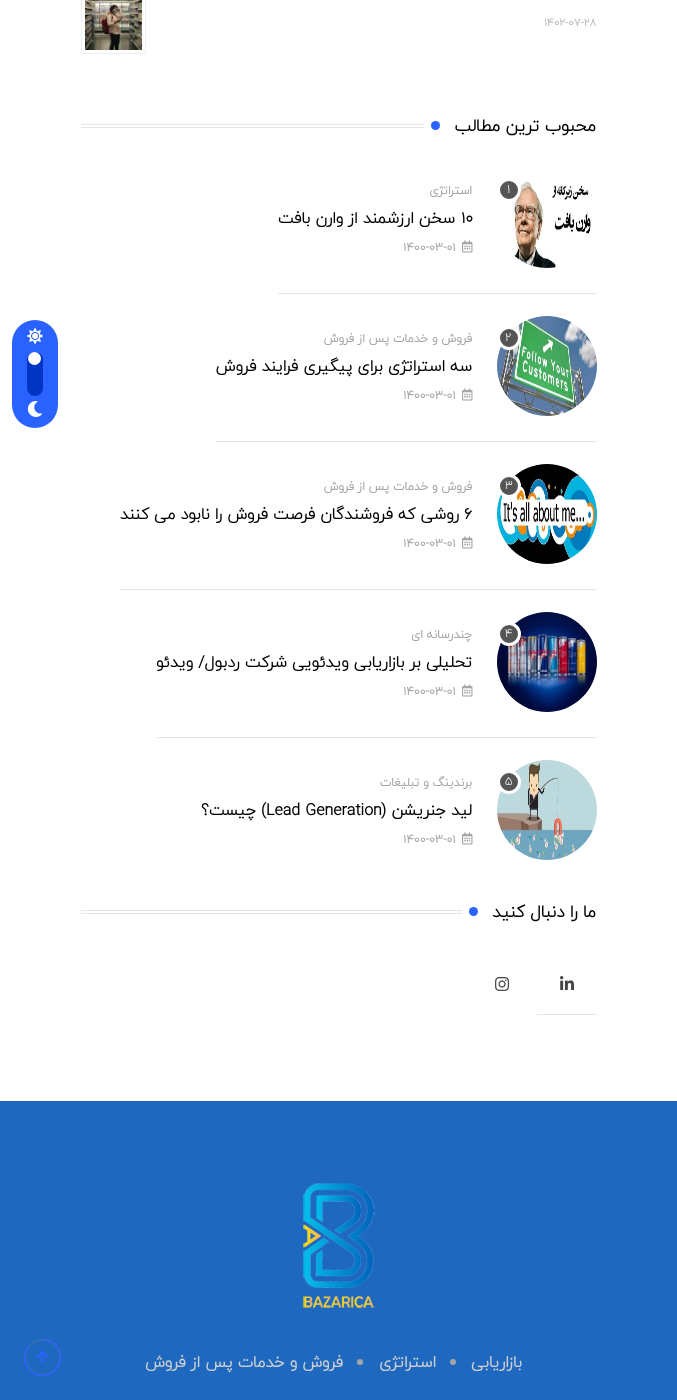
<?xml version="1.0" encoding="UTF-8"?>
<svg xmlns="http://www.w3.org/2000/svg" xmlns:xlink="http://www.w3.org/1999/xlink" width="677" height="1400">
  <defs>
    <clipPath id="clip1"><rect x="24" y="1339" width="37" height="37" /></clipPath>
  </defs>
  <rect width="100%" height="100%" fill="#ffffff" />
  <rect x="81.5" y="-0.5" width="64" height="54" fill="none" stroke="#eeeeee" />
  <image x="85" y="0" width="57" height="50" xlink:href="image1.png" />
  <circle cx="435.5" cy="125.5" r="4.5" fill="#2962ff" />
  <rect x="81" y="124" width="343" height="1" fill="#e5e5e5" />
  <rect x="81" y="127" width="343" height="1" fill="#e5e5e5" />
  <rect x="278" y="293" width="319" height="1" fill="#e5e5e5" />
  <image x="513" y="179" width="79" height="89" xlink:href="image2.png" />
  <circle cx="509" cy="190" r="10.5" fill="#555555" stroke="#ffffff" stroke-width="3" />
  <image x="462" y="240" width="11" height="13" xlink:href="image3.png" />
  <rect x="216" y="441" width="381" height="1" fill="#e5e5e5" />
  <image x="497" y="316" width="100" height="100" xlink:href="image4.png" />
  <circle cx="509" cy="338" r="10.5" fill="#555555" stroke="#ffffff" stroke-width="3" />
  <image x="462" y="388" width="11" height="13" xlink:href="image3.png" />
  <rect x="120" y="589" width="477" height="1" fill="#e5e5e5" />
  <image x="497" y="464" width="100" height="100" xlink:href="image5.png" />
  <circle cx="509" cy="486" r="10.5" fill="#555555" stroke="#ffffff" stroke-width="3" />
  <image x="462" y="536" width="11" height="13" xlink:href="image3.png" />
  <rect x="157" y="737" width="440" height="1" fill="#e5e5e5" />
  <image x="497" y="612" width="100" height="100" xlink:href="image6.png" />
  <circle cx="509" cy="634" r="10.5" fill="#555555" stroke="#ffffff" stroke-width="3" />
  <image x="462" y="684" width="11" height="13" xlink:href="image3.png" />
  <image x="497" y="760" width="100" height="100" xlink:href="image7.png" />
  <circle cx="509" cy="782" r="10.5" fill="#555555" stroke="#ffffff" stroke-width="3" />
  <image x="462" y="832" width="11" height="13" xlink:href="image3.png" />
  <circle cx="473.5" cy="911.5" r="4.5" fill="#2962ff" />
  <rect x="81" y="910" width="381" height="1" fill="#e5e5e5" />
  <rect x="81" y="913" width="381" height="1" fill="#e5e5e5" />
  <rect x="537" y="1014" width="60" height="1" fill="#e5e5e5" />
  <image x="560" y="976" width="14" height="14" xlink:href="image8.png" />
  <image x="495" y="977" width="15" height="14" xlink:href="image9.png" />
  <rect y="1101" width="677" height="299" fill="#1e69bf" />
  <image x="303" y="1183" width="72" height="125" xlink:href="image10.png" />
  <circle cx="453" cy="1362" r="3" fill="#a5a5a5" />
  <circle cx="360" cy="1362" r="3" fill="#a5a5a5" />
  <circle cx="42.5" cy="1357.5" r="17.5" fill="none" stroke="#376fb1" stroke-width="2" />
  <g clip-path="url(#clip1)">
    <path d="M 42.5 1339.5 c 10 0 18 8 18 18 c 0 10 -8 18 -18 18 c -10 0 -18 -8 -18 -18 c 0 -4.5 2 -8.5 4.5 -11.5" fill="none" stroke="#2962ff" stroke-width="1.5" />
  </g>
  <image x="36" y="1350" width="12" height="13" xlink:href="image11.png" />
  <rect x="12" y="320" width="46" height="108" rx="23" fill="#2962ff" />
  <image x="27" y="328" width="16" height="16" xlink:href="image12.png" />
  <rect x="27" y="352" width="16" height="44" rx="8" fill="#0034c2" />
  <circle cx="34.5" cy="358.5" r="6.5" fill="#ffffff" />
  <image x="27" y="401" width="16" height="16" xlink:href="image13.png" />
  <text x="544" y="26" style="font-family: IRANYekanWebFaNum; font-size: 11px; font-weight: bold; fill: #bbbbbb">1402-07-28</text>
  <text x="596" y="131" style="font-family: IRANYekanWebFaNum; font-size: 17px; font-weight: bold; direction: rtl; fill: #000000">محبوب ترین مطالب</text>
  <text x="507" y="193" style="font-family: IRANYekanWebFaNum; font-size: 12px; font-weight: 300; fill: #ffffff">1</text>
  <text x="472" y="194" style="font-family: IRANYekanWebFaNum; font-size: 12px; font-weight: bold; direction: rtl; fill: #a5a6aa">استراتژی</text>
  <text x="461" y="223" style="font-family: IRANYekanWebFaNum; font-size: 16px; font-weight: bold; fill: #000000">۱۰</text>
  <text x="455" y="223" style="font-family: IRANYekanWebFaNum; font-size: 16px; font-weight: bold; direction: rtl; fill: #000000">سخن ارزشمند از وارن بافت</text>
  <text x="403" y="251" style="font-family: IRANYekanWebFaNum; font-size: 12px; font-weight: bold; fill: #a5a6aa">1400-03-01</text>
  <text x="505" y="341" style="font-family: IRANYekanWebFaNum; font-size: 12px; font-weight: 300; fill: #ffffff">2</text>
  <text x="472" y="342" style="font-family: IRANYekanWebFaNum; font-size: 12px; font-weight: bold; direction: rtl; fill: #a5a6aa">فروش و خدمات پس از فروش</text>
  <text x="472" y="371" style="font-family: IRANYekanWebFaNum; font-size: 16px; font-weight: bold; direction: rtl; fill: #000000">سه استراتژی برای پیگیری فرایند فروش</text>
  <text x="403" y="399" style="font-family: IRANYekanWebFaNum; font-size: 12px; font-weight: bold; fill: #a5a6aa">1400-03-01</text>
  <text x="505" y="489" style="font-family: IRANYekanWebFaNum; font-size: 12px; font-weight: 300; fill: #ffffff">3</text>
  <text x="472" y="490" style="font-family: IRANYekanWebFaNum; font-size: 12px; font-weight: bold; direction: rtl; fill: #a5a6aa">فروش و خدمات پس از فروش</text>
  <text x="464" y="519" style="font-family: IRANYekanWebFaNum; font-size: 16px; font-weight: bold; fill: #000000">6</text>
  <text x="459" y="519" style="font-family: IRANYekanWebFaNum; font-size: 16px; font-weight: bold; direction: rtl; fill: #000000">روشی که فروشندگان فرصت فروش را نابود می کنند</text>
  <text x="403" y="547" style="font-family: IRANYekanWebFaNum; font-size: 12px; font-weight: bold; fill: #a5a6aa">1400-03-01</text>
  <text x="505" y="637" style="font-family: IRANYekanWebFaNum; font-size: 12px; font-weight: 300; fill: #ffffff">4</text>
  <text x="472" y="638" style="font-family: IRANYekanWebFaNum; font-size: 12px; font-weight: bold; direction: rtl; fill: #a5a6aa">چندرسانه ای</text>
  <text x="472" y="667" style="font-family: IRANYekanWebFaNum; font-size: 16px; font-weight: bold; direction: rtl; fill: #000000">تحلیلی بر بازاریابی ویدئویی شرکت ردبول/ ویدئو</text>
  <text x="403" y="695" style="font-family: IRANYekanWebFaNum; font-size: 12px; font-weight: bold; fill: #a5a6aa">1400-03-01</text>
  <text x="505" y="785" style="font-family: IRANYekanWebFaNum; font-size: 12px; font-weight: 300; fill: #ffffff">5</text>
  <text x="472" y="786" style="font-family: IRANYekanWebFaNum; font-size: 12px; font-weight: bold; direction: rtl; fill: #a5a6aa">برندینگ و تبلیغات</text>
  <text x="472" y="815" style="font-family: IRANYekanWebFaNum; font-size: 16px; font-weight: bold; direction: rtl; fill: #000000">لید جنریشن (</text>
  <text x="266" y="815" style="font-family: IRANYekanWebFaNum; font-size: 16px; font-weight: bold; fill: #000000">Lead Generation</text>
  <text x="266" y="815" style="font-family: IRANYekanWebFaNum; font-size: 16px; font-weight: bold; direction: rtl; fill: #000000">) چیست؟</text>
  <text x="403" y="843" style="font-family: IRANYekanWebFaNum; font-size: 12px; font-weight: bold; fill: #a5a6aa">1400-03-01</text>
  <text x="596" y="917" style="font-family: IRANYekanWebFaNum; font-size: 17px; font-weight: bold; direction: rtl; fill: #000000">ما را دنبال کنید</text>
  <text x="522" y="1367" style="font-family: IRANYekanWebFaNum; font-size: 16px; font-weight: bold; direction: rtl; fill: #d0d0d0">بازاریابی</text>
  <text x="436" y="1367" style="font-family: IRANYekanWebFaNum; font-size: 16px; font-weight: bold; direction: rtl; fill: #d0d0d0">استراتژی</text>
  <text x="343" y="1367" style="font-family: IRANYekanWebFaNum; font-size: 16px; font-weight: bold; direction: rtl; fill: #d0d0d0">فروش و خدمات پس از فروش</text>
</svg>
